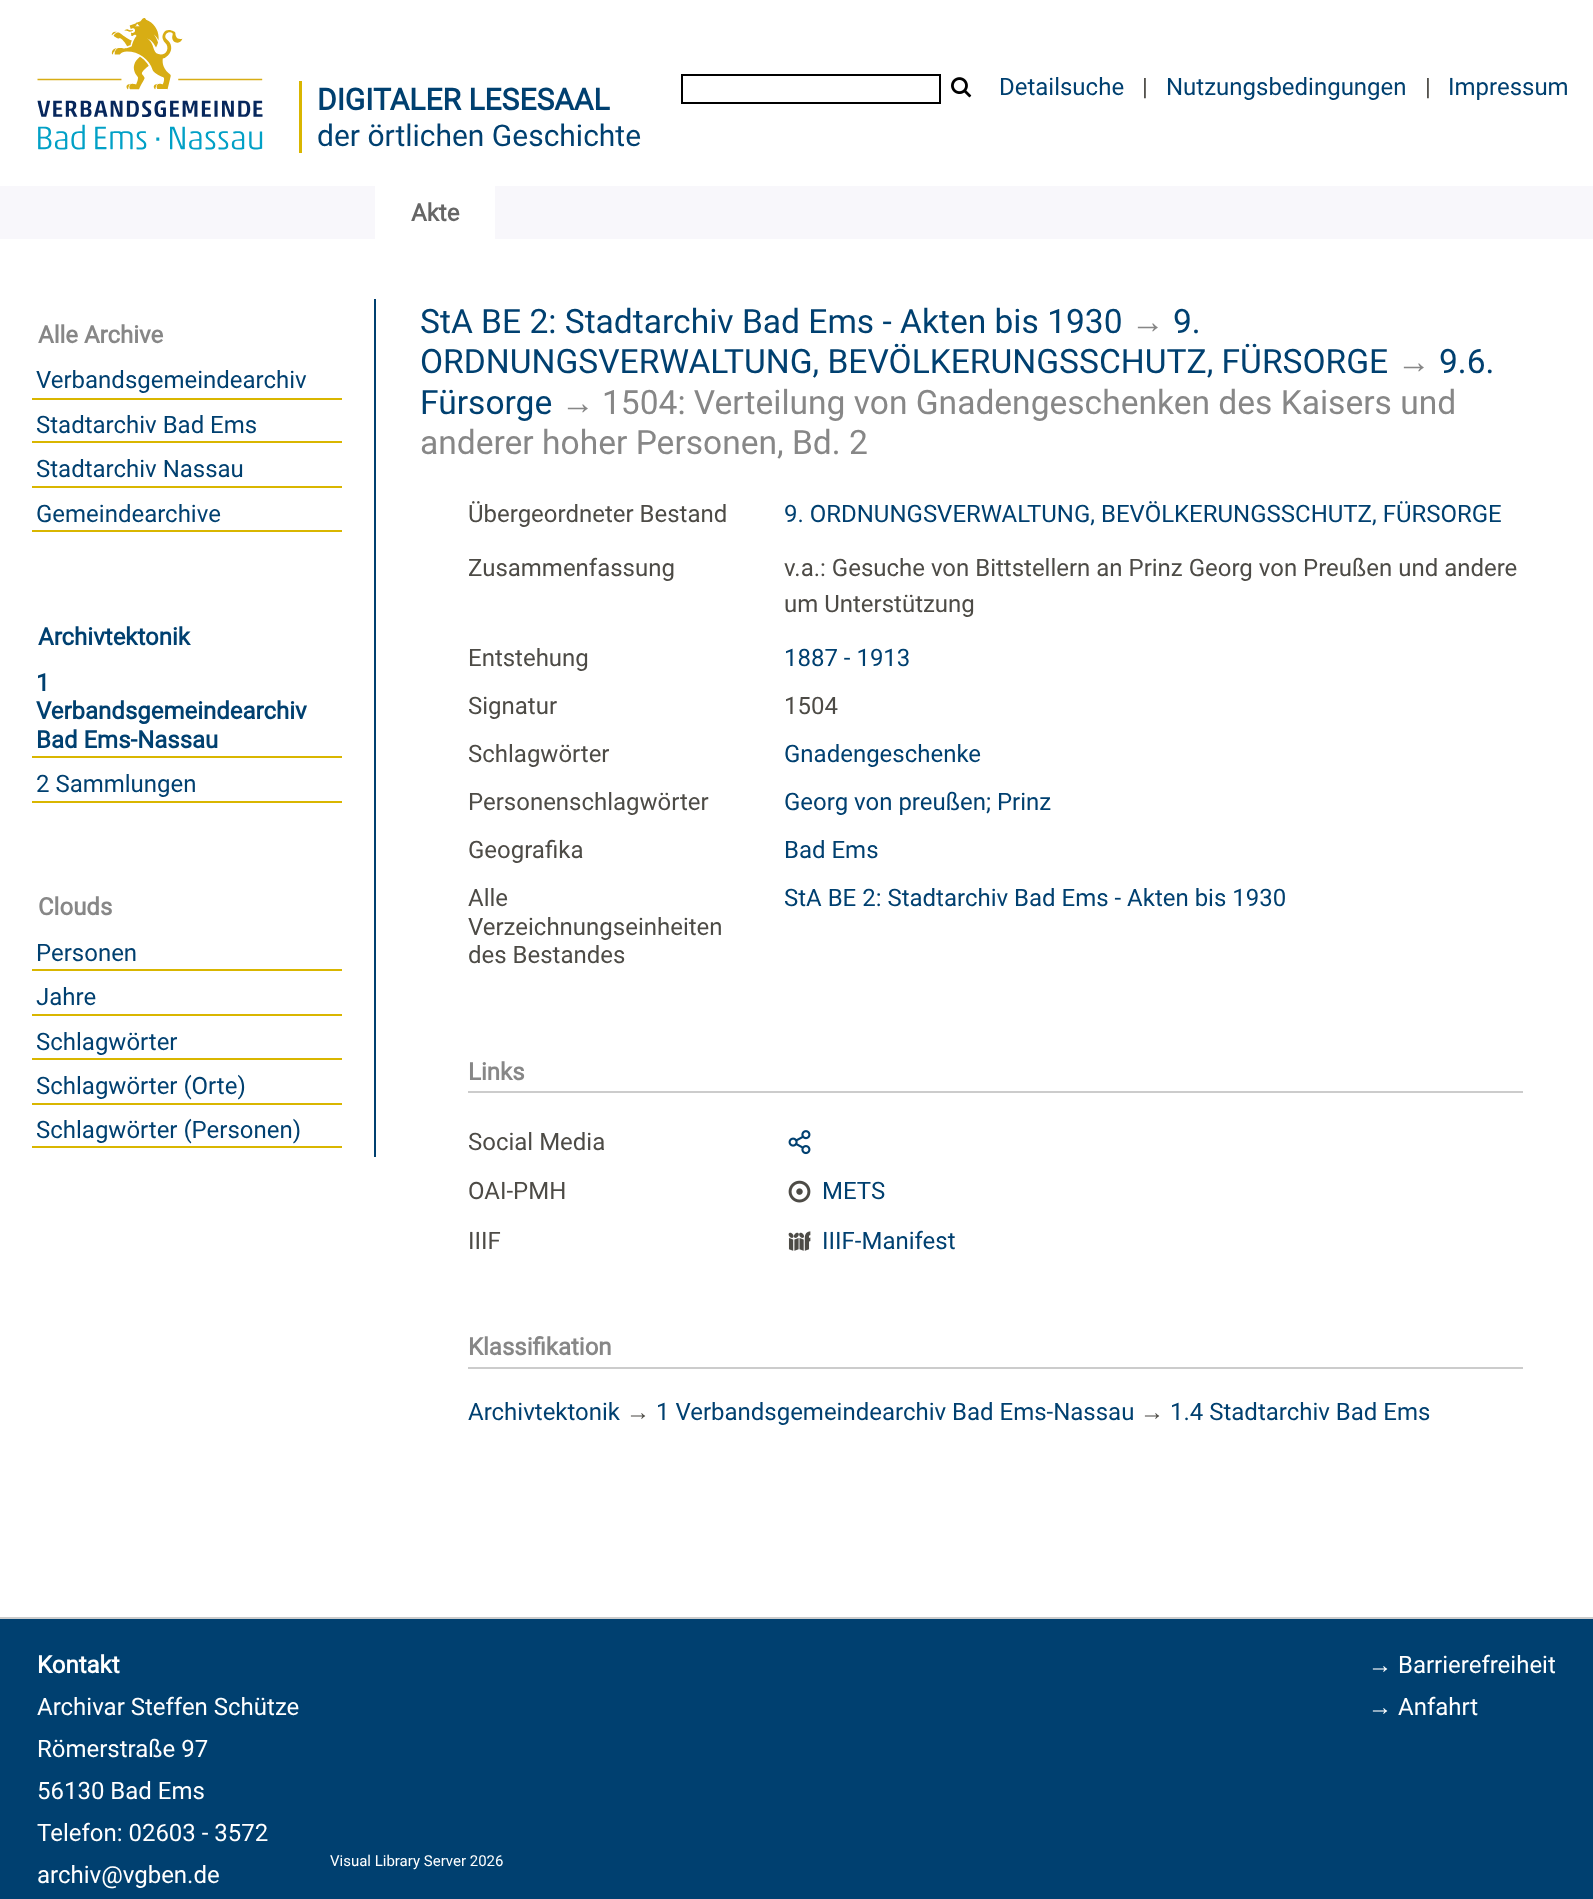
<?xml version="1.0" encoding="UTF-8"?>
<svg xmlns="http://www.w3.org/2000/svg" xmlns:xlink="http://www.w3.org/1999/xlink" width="1593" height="1899">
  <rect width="100%" height="100%" fill="#ffffff" />
  <image x="37" y="18" width="226" height="132" xlink:href="image1.png" />
  <rect x="299" y="81" width="3" height="72" fill="#d9b600" />
  <rect x="682" y="75" width="258" height="28" fill="none" stroke="#000000" stroke-width="2" />
  <image x="951" y="77" width="21" height="21" xlink:href="image2.png" />
  <rect y="186" width="1593" height="53" fill="#f8f7fb" />
  <rect x="375" y="186" width="120" height="53" fill="#ffffff" />
  <rect x="374" y="299" width="2" height="858" fill="#004070" />
  <rect x="32" y="398" width="310" height="2" fill="#d9b600" />
  <rect x="32" y="441" width="310" height="2" fill="#d9b600" />
  <rect x="32" y="486" width="310" height="2" fill="#d9b600" />
  <rect x="32" y="530" width="310" height="2" fill="#d9b600" />
  <rect x="32" y="756" width="310" height="2" fill="#d9b600" />
  <rect x="32" y="801" width="310" height="2" fill="#d9b600" />
  <rect x="32" y="969" width="310" height="2" fill="#d9b600" />
  <rect x="32" y="1014" width="310" height="2" fill="#d9b600" />
  <rect x="32" y="1058" width="310" height="2" fill="#d9b600" />
  <rect x="32" y="1103" width="310" height="2" fill="#d9b600" />
  <rect x="32" y="1146" width="310" height="2" fill="#d9b600" />
  <rect x="468" y="1091" width="1055" height="2" fill="#cccccc" />
  <image x="788" y="1130" width="23" height="25" xlink:href="image3.png" />
  <image x="788" y="1180" width="23" height="23" xlink:href="image4.png" />
  <image x="788" y="1231" width="23" height="20" xlink:href="image5.png" />
  <rect x="468" y="1367" width="1055" height="2" fill="#cccccc" />
  <rect y="1619" width="1593" height="280" fill="#004070" />
  <rect y="1617" width="1593" height="2" fill="#cccccc" />
  <text x="317" y="110" style="font-family: Roboto; font-size: 30px; font-weight: bold; fill: #004070">DIGITALER LESESAAL</text>
  <text x="317" y="146" style="font-family: Roboto; font-size: 30px; fill: #004070">der örtlichen Geschichte</text>
  <text x="999" y="95" style="font-family: Roboto; font-size: 24px; fill: #004070">Detailsuche</text>
  <text x="1142" y="95" style="font-family: Roboto; font-size: 24px; fill: #4d4b46">|</text>
  <text x="1166" y="95" style="font-family: Roboto; font-size: 24px; fill: #004070">Nutzungsbedingungen</text>
  <text x="1425" y="95" style="font-family: Roboto; font-size: 24px; fill: #4d4b46">|</text>
  <text x="1448" y="95" style="font-family: Roboto; font-size: 24px; fill: #004070">Impressum</text>
  <text x="411" y="221" style="font-family: Roboto; font-size: 24px; font-weight: bold; fill: #666666">Akte</text>
  <text x="38" y="343" style="font-family: Roboto; font-size: 24px; font-weight: bold; fill: #878787">Alle Archive</text>
  <text x="36" y="388" style="font-family: Roboto; font-size: 24px; fill: #004070">Verbandsgemeindearchiv</text>
  <text x="36" y="433" style="font-family: Roboto; font-size: 24px; fill: #004070">Stadtarchiv Bad Ems</text>
  <text x="36" y="477" style="font-family: Roboto; font-size: 24px; fill: #004070">Stadtarchiv Nassau</text>
  <text x="36" y="522" style="font-family: Roboto; font-size: 24px; fill: #004070">Gemeindearchive</text>
  <text x="38" y="645" style="font-family: Roboto; font-size: 24px; font-weight: bold; fill: #004070">Archivtektonik</text>
  <text x="36" y="691" style="font-family: Roboto; font-size: 24px; font-weight: bold; fill: #004070">1</text>
  <text x="36" y="719" style="font-family: Roboto; font-size: 24px; font-weight: bold; fill: #004070">Verbandsgemeindearchiv</text>
  <text x="36" y="748" style="font-family: Roboto; font-size: 24px; font-weight: bold; fill: #004070">Bad Ems-Nassau</text>
  <text x="36" y="792" style="font-family: Roboto; font-size: 24px; fill: #004070">2 Sammlungen</text>
  <text x="38" y="915" style="font-family: Roboto; font-size: 24px; font-weight: bold; fill: #878787">Clouds</text>
  <text x="36" y="961" style="font-family: Roboto; font-size: 24px; fill: #004070">Personen</text>
  <text x="36" y="1005" style="font-family: Roboto; font-size: 24px; fill: #004070">Jahre</text>
  <text x="36" y="1050" style="font-family: Roboto; font-size: 24px; fill: #004070">Schlagwörter</text>
  <text x="36" y="1094" style="font-family: Roboto; font-size: 24px; fill: #004070">Schlagwörter (Orte)</text>
  <text x="36" y="1138" style="font-family: Roboto; font-size: 24px; fill: #004070">Schlagwörter (Personen)</text>
  <text x="420" y="333" style="font-family: Roboto; font-size: 33.6px; fill: #004070">StA BE 2: Stadtarchiv Bad Ems - Akten bis 1930</text>
  <text x="1131" y="333" style="font-family: Liberation Serif; font-size: 33.6px; fill: #878787">→</text>
  <text x="1173" y="333" style="font-family: Roboto; font-size: 33.6px; fill: #004070">9.</text>
  <text x="420" y="373" style="font-family: Roboto; font-size: 33.6px; fill: #004070">ORDNUNGSVERWALTUNG, BEVÖLKERUNGSSCHUTZ, FÜRSORGE</text>
  <text x="1397" y="373" style="font-family: Liberation Serif; font-size: 33.6px; fill: #878787">→</text>
  <text x="1439" y="373" style="font-family: Roboto; font-size: 33.6px; fill: #004070">9.6.</text>
  <text x="420" y="414" style="font-family: Roboto; font-size: 33.6px; fill: #004070">Fürsorge</text>
  <text x="561" y="414" style="font-family: Liberation Serif; font-size: 33.6px; fill: #878787">→</text>
  <text x="602" y="414" style="font-family: Roboto; font-size: 33.6px; fill: #878787">1504: Verteilung von Gnadengeschenken des Kaisers und</text>
  <text x="420" y="454" style="font-family: Roboto; font-size: 33.6px; fill: #878787">anderer hoher Personen, Bd. 2</text>
  <text x="468" y="522" style="font-family: Roboto; font-size: 24px; fill: #4d4b46">Übergeordneter Bestand</text>
  <text x="784" y="522" style="font-family: Roboto; font-size: 24px; fill: #004070">9. ORDNUNGSVERWALTUNG, BEVÖLKERUNGSSCHUTZ, FÜRSORGE</text>
  <text x="468" y="576" style="font-family: Roboto; font-size: 24px; fill: #4d4b46">Zusammenfassung</text>
  <text x="784" y="576" style="font-family: Roboto; font-size: 24px; fill: #4d4b46">v.a.: Gesuche von Bittstellern an Prinz Georg von Preußen und andere</text>
  <text x="784" y="612" style="font-family: Roboto; font-size: 24px; fill: #4d4b46">um Unterstützung</text>
  <text x="468" y="666" style="font-family: Roboto; font-size: 24px; fill: #4d4b46">Entstehung</text>
  <text x="784" y="666" style="font-family: Roboto; font-size: 24px; fill: #004070">1887 - 1913</text>
  <text x="468" y="714" style="font-family: Roboto; font-size: 24px; fill: #4d4b46">Signatur</text>
  <text x="784" y="714" style="font-family: Roboto; font-size: 24px; fill: #4d4b46">1504</text>
  <text x="468" y="762" style="font-family: Roboto; font-size: 24px; fill: #4d4b46">Schlagwörter</text>
  <text x="784" y="762" style="font-family: Roboto; font-size: 24px; fill: #004070">Gnadengeschenke</text>
  <text x="468" y="810" style="font-family: Roboto; font-size: 24px; fill: #4d4b46">Personenschlagwörter</text>
  <text x="784" y="810" style="font-family: Roboto; font-size: 24px; fill: #004070">Georg von preußen; Prinz</text>
  <text x="468" y="858" style="font-family: Roboto; font-size: 24px; fill: #4d4b46">Geografika</text>
  <text x="784" y="858" style="font-family: Roboto; font-size: 24px; fill: #004070">Bad Ems</text>
  <text x="468" y="906" style="font-family: Roboto; font-size: 24px; fill: #4d4b46">Alle</text>
  <text x="468" y="935" style="font-family: Roboto; font-size: 24px; fill: #4d4b46">Verzeichnungseinheiten</text>
  <text x="468" y="963" style="font-family: Roboto; font-size: 24px; fill: #4d4b46">des Bestandes</text>
  <text x="784" y="906" style="font-family: Roboto; font-size: 24px; fill: #004070">StA BE 2: Stadtarchiv Bad Ems - Akten bis 1930</text>
  <text x="468" y="1080" style="font-family: Roboto; font-size: 24px; font-weight: bold; fill: #878787">Links</text>
  <text x="468" y="1150" style="font-family: Roboto; font-size: 24px; fill: #4d4b46">Social Media</text>
  <text x="468" y="1199" style="font-family: Roboto; font-size: 24px; fill: #4d4b46">OAI-PMH</text>
  <text x="822" y="1199" style="font-family: Roboto; font-size: 24px; fill: #004070">METS</text>
  <text x="468" y="1249" style="font-family: Roboto; font-size: 24px; fill: #4d4b46">IIIF</text>
  <text x="822" y="1249" style="font-family: Roboto; font-size: 24px; fill: #004070">IIIF-Manifest</text>
  <text x="468" y="1355" style="font-family: Roboto; font-size: 24px; font-weight: bold; fill: #878787">Klassifikation</text>
  <text x="468" y="1420" style="font-family: Roboto; font-size: 24px; fill: #004070">Archivtektonik</text>
  <text x="626" y="1420" style="font-family: Liberation Serif; font-size: 24px; fill: #4d4b46">→</text>
  <text x="656" y="1420" style="font-family: Roboto; font-size: 24px; fill: #004070">1 Verbandsgemeindearchiv Bad Ems-Nassau</text>
  <text x="1140" y="1420" style="font-family: Liberation Serif; font-size: 24px; fill: #4d4b46">→</text>
  <text x="1170" y="1420" style="font-family: Roboto; font-size: 24px; fill: #004070">1.4 Stadtarchiv Bad Ems</text>
  <text x="37" y="1673" style="font-family: Roboto; font-size: 24px; font-weight: bold; fill: #ffffff">Kontakt</text>
  <text x="37" y="1715" style="font-family: Roboto; font-size: 24px; fill: #ffffff">Archivar Steffen Schütze</text>
  <text x="37" y="1757" style="font-family: Roboto; font-size: 24px; fill: #ffffff">Römerstraße 97</text>
  <text x="37" y="1799" style="font-family: Roboto; font-size: 24px; fill: #ffffff">56130 Bad Ems</text>
  <text x="37" y="1841" style="font-family: Roboto; font-size: 24px; fill: #ffffff">Telefon: 02603 - 3572</text>
  <text x="37" y="1883" style="font-family: Roboto; font-size: 24px; fill: #ffffff">archiv@vgben.de</text>
  <text x="1368" y="1673" style="font-family: Liberation Serif; font-size: 24px; fill: #ffffff">→</text>
  <text x="1398" y="1673" style="font-family: Roboto; font-size: 24px; fill: #ffffff">Barrierefreiheit</text>
  <text x="1368" y="1715" style="font-family: Liberation Serif; font-size: 24px; fill: #ffffff">→</text>
  <text x="1398" y="1715" style="font-family: Roboto; font-size: 24px; fill: #ffffff">Anfahrt</text>
  <text x="330" y="1866" style="font-family: Roboto; font-size: 15px; fill: #ffffff">Visual Library Server 2026</text>
</svg>
